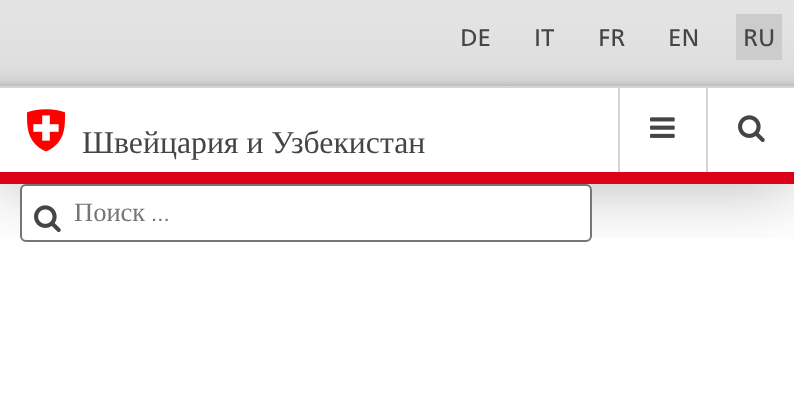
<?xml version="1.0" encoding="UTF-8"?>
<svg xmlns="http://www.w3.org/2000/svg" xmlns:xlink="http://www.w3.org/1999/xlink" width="794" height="418">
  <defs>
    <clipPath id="clip1"><rect x="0" y="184" width="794" height="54" /></clipPath>
    <linearGradient id="g1" gradientUnits="userSpaceOnUse" x1="397" y1="0" x2="397" y2="86"><stop offset="0" stop-color="#e4e4e4" /><stop offset="0.39" stop-color="#e2e2e2" /><stop offset="0.79" stop-color="#dddddd" /><stop offset="0.91" stop-color="#d5d5d5" /><stop offset="0.95" stop-color="#cfcfcf" /><stop offset="1" stop-color="#bebebe" /></linearGradient>
  </defs>
  <rect width="100%" height="100%" fill="#ffffff" />
  <g clip-path="url(#clip1)">
    <rect y="88" width="794" height="96" fill="#000000" fill-opacity="0.3" filter="blur(36px)" />
  </g>
  <rect width="794" height="86" fill="url(#g1)" />
  <rect y="86" width="794" height="2" fill="#d5d5d5" />
  <rect x="736" y="14" width="46" height="46" fill="#cccccc" />
  <rect y="172" width="794" height="12" fill="#dc0018" />
  <image x="27" y="109" width="39" height="43" xlink:href="image1.png" />
  <rect x="618" y="88" width="2" height="84" fill="#d5d5d5" />
  <image x="650" y="117" width="25" height="21" xlink:href="image2.png" />
  <rect x="706" y="88" width="2" height="84" fill="#d5d5d5" />
  <image x="738" y="115" width="27" height="27" xlink:href="image3.png" />
  <rect x="21" y="185" width="570" height="56" rx="5" fill="#ffffff" stroke="#757575" stroke-width="2" />
  <image x="34" y="205" width="27" height="27" xlink:href="image3.png" />
  <text x="460" y="46" style="font-family: 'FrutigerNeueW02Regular'; font-size: 24px; fill: #454545">DE</text>
  <text x="534" y="46" style="font-family: 'FrutigerNeueW02Regular'; font-size: 24px; fill: #454545">IT</text>
  <text x="598" y="46" style="font-family: 'FrutigerNeueW02Regular'; font-size: 24px; fill: #454545">FR</text>
  <text x="668" y="46" style="font-family: 'FrutigerNeueW02Regular'; font-size: 24px; fill: #454545">EN</text>
  <text x="743" y="46" style="font-family: 'FrutigerNeueW02Regular'; font-size: 24px; fill: #454545">RU</text>
  <text x="82" y="153" style="font-family: Liberation Serif; font-size: 31.75px; fill: #454545">Швейцария и Узбекистан</text>
  <text x="74" y="221" style="font-family: Liberation Serif; font-size: 26.5px; fill: #757575">Поиск</text>
  <text x="151" y="221" style="font-family: 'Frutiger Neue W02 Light'; font-size: 26.5px; font-weight: 300; fill: #757575">...</text>
</svg>
